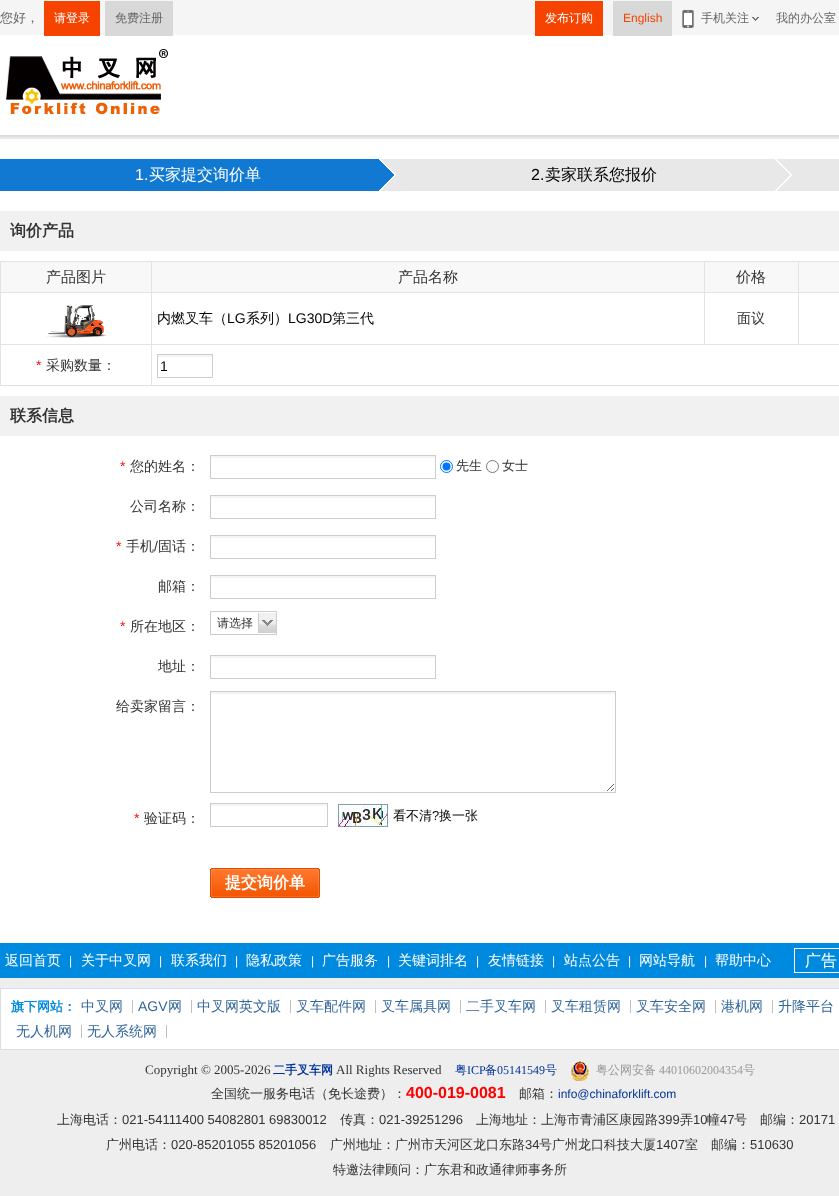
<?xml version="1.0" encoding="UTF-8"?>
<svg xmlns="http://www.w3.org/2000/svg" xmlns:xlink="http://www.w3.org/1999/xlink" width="839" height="1196">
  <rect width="100%" height="100%" fill="#ffffff" />
  <rect width="839" height="35" fill="#f5f5f5" />
  <rect x="44" y="1" width="56" height="35" fill="#f64400" />
  <rect x="105" y="1" width="68" height="35" fill="#d8d8d8" />
  <rect x="535" y="1" width="68" height="35" fill="#f64400" />
  <rect x="613" y="1" width="59" height="35" fill="#d8d8d8" />
  <image x="752" y="17" width="7" height="4" xlink:href="image1.png" />
  <image x="682" y="10" width="12" height="18" xlink:href="image2.png" />
  <image x="0" y="135" width="839" height="4" xlink:href="image3.png" />
  <image x="6" y="49" width="162" height="65" xlink:href="image4.png" />
  <rect y="159" width="379" height="32" fill="#1179d1" />
  <image x="379" y="159" width="17" height="32" xlink:href="image5.png" />
  <rect x="396" y="159" width="379" height="32" fill="#e8e8e8" />
  <image x="775" y="159" width="17" height="32" xlink:href="image6.png" />
  <rect x="792" y="159" width="47" height="32" fill="#e8e8e8" />
  <rect y="211" width="839" height="40" fill="#f1f1f1" />
  <rect y="261" width="839" height="1" fill="#e3e3e3" />
  <rect y="261" width="1" height="125" fill="#e3e3e3" />
  <rect x="1" y="262" width="150" height="30" fill="#f8f8f8" />
  <rect x="798" y="344" width="41" height="1" fill="#e3e3e3" />
  <rect x="798" y="292" width="1" height="53" fill="#e3e3e3" />
  <rect x="798" y="292" width="41" height="1" fill="#e3e3e3" />
  <rect x="798" y="261" width="1" height="32" fill="#e3e3e3" />
  <rect x="704" y="344" width="95" height="1" fill="#e3e3e3" />
  <rect x="704" y="292" width="1" height="53" fill="#e3e3e3" />
  <rect x="704" y="292" width="95" height="1" fill="#e3e3e3" />
  <rect x="704" y="261" width="1" height="32" fill="#e3e3e3" />
  <rect x="151" y="385" width="688" height="1" fill="#e3e3e3" />
  <rect x="151" y="344" width="1" height="42" fill="#e3e3e3" />
  <rect x="151" y="344" width="554" height="1" fill="#e3e3e3" />
  <rect x="151" y="292" width="1" height="53" fill="#e3e3e3" />
  <rect x="151" y="292" width="554" height="1" fill="#e3e3e3" />
  <rect x="151" y="261" width="1" height="32" fill="#e3e3e3" />
  <rect y="292" width="152" height="1" fill="#e3e3e3" />
  <rect x="152" y="262" width="552" height="30" fill="#f8f8f8" />
  <rect x="705" y="262" width="93" height="30" fill="#f8f8f8" />
  <rect x="799" y="262" width="40" height="30" fill="#f8f8f8" />
  <rect y="344" width="152" height="1" fill="#e3e3e3" />
  <image x="46" y="305" width="60" height="33" xlink:href="image7.png" />
  <rect y="385" width="152" height="1" fill="#e3e3e3" />
  <rect x="157" y="355" width="56" height="2" fill="#f4f4f4" />
  <rect x="157.5" y="354.5" width="55" height="23" fill="none" stroke="#cdcdcd" />
  <rect y="396" width="839" height="40" fill="#f1f1f1" />
  <rect x="210" y="456" width="226" height="2" fill="#f4f4f4" />
  <rect x="210.5" y="455.5" width="225" height="23" fill="none" stroke="#cdcdcd" />
  <circle cx="446.5" cy="466.5" r="6" fill="none" stroke="#0075ff" />
  <circle cx="446.5" cy="466.5" r="4" fill="#0075ff" />
  <circle cx="492.5" cy="466.5" r="6" fill="none" stroke="#767676" />
  <rect x="210" y="496" width="226" height="2" fill="#f4f4f4" />
  <rect x="210.5" y="495.5" width="225" height="23" fill="none" stroke="#cdcdcd" />
  <rect x="210" y="536" width="226" height="2" fill="#f4f4f4" />
  <rect x="210.5" y="535.5" width="225" height="23" fill="none" stroke="#cdcdcd" />
  <rect x="210" y="576" width="226" height="2" fill="#f4f4f4" />
  <rect x="210.5" y="575.5" width="225" height="23" fill="none" stroke="#cdcdcd" />
  <image x="258" y="613" width="18" height="20" xlink:href="image8.png" />
  <rect x="210.5" y="611.5" width="66" height="23" fill="none" stroke="#cdcdcd" />
  <rect x="210" y="656" width="226" height="2" fill="#f4f4f4" />
  <rect x="210.5" y="655.5" width="225" height="23" fill="none" stroke="#cdcdcd" />
  <image x="211" y="692" width="404" height="99" xlink:href="image9.png" />
  <rect x="210.5" y="691.5" width="405" height="101" fill="none" stroke="#cdcdcd" />
  <rect x="210" y="804" width="118" height="2" fill="#f4f4f4" />
  <rect x="210.5" y="803.5" width="117" height="23" fill="none" stroke="#cdcdcd" />
  <image x="338" y="804" width="50" height="23" xlink:href="image10.png" />
  <image x="210" y="868" width="110" height="30" xlink:href="image11.png" />
  <image x="0" y="943" width="839" height="253" xlink:href="image12.png" />
  <rect x="794.5" y="948.5" width="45" height="24" fill="none" stroke="#ffffff" />
  <rect x="0.5" y="988.5" width="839" height="61" fill="#ffffff" stroke="#dbdee1" />
  <rect x="132" y="1000" width="1" height="13" fill="#c1c1c1" />
  <rect x="191" y="1000" width="1" height="13" fill="#c1c1c1" />
  <rect x="290" y="1000" width="1" height="13" fill="#c1c1c1" />
  <rect x="375" y="1000" width="1" height="13" fill="#c1c1c1" />
  <rect x="460" y="1000" width="1" height="13" fill="#c1c1c1" />
  <rect x="545" y="1000" width="1" height="13" fill="#c1c1c1" />
  <rect x="630" y="1000" width="1" height="13" fill="#c1c1c1" />
  <rect x="715" y="1000" width="1" height="13" fill="#c1c1c1" />
  <rect x="772" y="1000" width="1" height="13" fill="#c1c1c1" />
  <rect x="81" y="1025" width="1" height="13" fill="#c1c1c1" />
  <rect x="166" y="1025" width="1" height="13" fill="#c1c1c1" />
  <image x="571" y="1061" width="18" height="20" xlink:href="image13.png" />
  <text x="0" y="22" style="font-family: WenQuanYi Zen Hei; font-size: 13px; font-weight: 500; fill: #666666">您好，</text>
  <text x="54" y="22" style="font-family: WenQuanYi Zen Hei; font-size: 12px; font-weight: 500; fill: #ffffff">请登录</text>
  <text x="115" y="22" style="font-family: WenQuanYi Zen Hei; font-size: 12px; font-weight: 500; fill: #666666">免费注册</text>
  <text x="545" y="22" style="font-family: WenQuanYi Zen Hei; font-size: 12px; font-weight: 500; fill: #ffffff">发布订购</text>
  <text x="623" y="22" style="font-family: Liberation Sans; font-size: 12px; fill: #f64400">English</text>
  <text x="701" y="22" style="font-family: WenQuanYi Zen Hei; font-size: 12px; font-weight: 500; fill: #666666">手机关注</text>
  <text x="776" y="22" style="font-family: WenQuanYi Zen Hei; font-size: 12px; font-weight: 500; fill: #666666">我的办公室</text>
  <text x="135" y="180" style="font-family: Liberation Sans; font-size: 16px; fill: #ffffff">1.</text>
  <text x="149" y="180" style="font-family: WenQuanYi Zen Hei; font-size: 16px; font-weight: 500; fill: #ffffff">买家提交询价单</text>
  <text x="531" y="180" style="font-family: Liberation Sans; font-size: 16px; fill: #000000">2.</text>
  <text x="545" y="180" style="font-family: WenQuanYi Zen Hei; font-size: 16px; font-weight: 500; fill: #000000">卖家联系您报价</text>
  <text x="10" y="236" style="font-family: WenQuanYi Zen Hei; font-size: 16px; font-weight: bold; fill: #333333">询价产品</text>
  <text x="46" y="282" style="font-family: WenQuanYi Zen Hei; font-size: 15px; font-weight: 500; fill: #333333">产品图片</text>
  <text x="398" y="282" style="font-family: WenQuanYi Zen Hei; font-size: 15px; font-weight: 500; fill: #333333">产品名称</text>
  <text x="736" y="282" style="font-family: WenQuanYi Zen Hei; font-size: 15px; font-weight: 500; fill: #333333">价格</text>
  <text x="157" y="323" style="font-family: WenQuanYi Zen Hei; font-size: 14px; font-weight: 500; fill: #000000">内燃叉车（</text>
  <text x="227" y="323" style="font-family: Liberation Sans; font-size: 14px; fill: #000000">LG</text>
  <text x="246" y="323" style="font-family: WenQuanYi Zen Hei; font-size: 14px; font-weight: 500; fill: #000000">系列）</text>
  <text x="288" y="323" style="font-family: Liberation Sans; font-size: 14px; fill: #000000">LG30D</text>
  <text x="332" y="323" style="font-family: WenQuanYi Zen Hei; font-size: 14px; font-weight: 500; fill: #000000">第三代</text>
  <text x="737" y="323" style="font-family: WenQuanYi Zen Hei; font-size: 14px; font-weight: 500; fill: #333333">面议</text>
  <text x="36" y="370" style="font-family: Liberation Sans; font-size: 14px; fill: #ff0000">*</text>
  <text x="46" y="370" style="font-family: WenQuanYi Zen Hei; font-size: 14px; font-weight: 500; fill: #333333">采购数量：</text>
  <text x="160" y="371" style="font-family: Liberation Sans; font-size: 14px; fill: #000000">1</text>
  <text x="10" y="421" style="font-family: WenQuanYi Zen Hei; font-size: 16px; font-weight: bold; fill: #333333">联系信息</text>
  <text x="120" y="471" style="font-family: Liberation Sans; font-size: 14px; fill: #ff0000">*</text>
  <text x="130" y="471" style="font-family: WenQuanYi Zen Hei; font-size: 14px; font-weight: 500; fill: #333333">您的姓名：</text>
  <text x="456" y="470" style="font-family: WenQuanYi Zen Hei; font-size: 13px; font-weight: 500; fill: #333333">先生</text>
  <text x="502" y="470" style="font-family: WenQuanYi Zen Hei; font-size: 13px; font-weight: 500; fill: #333333">女士</text>
  <text x="130" y="511" style="font-family: WenQuanYi Zen Hei; font-size: 14px; font-weight: 500; fill: #333333">公司名称：</text>
  <text x="116" y="551" style="font-family: Liberation Sans; font-size: 14px; fill: #ff0000">*</text>
  <text x="126" y="551" style="font-family: WenQuanYi Zen Hei; font-size: 14px; font-weight: 500; fill: #333333">手机</text>
  <text x="154" y="551" style="font-family: Liberation Sans; font-size: 14px; fill: #333333">/</text>
  <text x="158" y="551" style="font-family: WenQuanYi Zen Hei; font-size: 14px; font-weight: 500; fill: #333333">固话：</text>
  <text x="158" y="591" style="font-family: WenQuanYi Zen Hei; font-size: 14px; font-weight: 500; fill: #333333">邮箱：</text>
  <text x="120" y="631" style="font-family: Liberation Sans; font-size: 14px; fill: #ff0000">*</text>
  <text x="130" y="631" style="font-family: WenQuanYi Zen Hei; font-size: 14px; font-weight: 500; fill: #333333">所在地区：</text>
  <text x="217" y="627" style="font-family: WenQuanYi Zen Hei; font-size: 12px; font-weight: 500; fill: #333333">请选择</text>
  <text x="158" y="671" style="font-family: WenQuanYi Zen Hei; font-size: 14px; font-weight: 500; fill: #333333">地址：</text>
  <text x="116" y="711" style="font-family: WenQuanYi Zen Hei; font-size: 14px; font-weight: 500; fill: #333333">给卖家留言：</text>
  <text x="134" y="823" style="font-family: Liberation Sans; font-size: 14px; fill: #ff0000">*</text>
  <text x="144" y="823" style="font-family: WenQuanYi Zen Hei; font-size: 14px; font-weight: 500; fill: #333333">验证码：</text>
  <text x="393" y="820" style="font-family: WenQuanYi Zen Hei; font-size: 13px; font-weight: 500; fill: #000000">看不清</text>
  <text x="432" y="820" style="font-family: Liberation Sans; font-size: 13px; fill: #000000">?</text>
  <text x="439" y="820" style="font-family: WenQuanYi Zen Hei; font-size: 13px; font-weight: 500; fill: #000000">换一张</text>
  <text x="225" y="888" style="font-family: WenQuanYi Zen Hei; font-size: 16px; font-weight: bold; fill: #ffffff">提交询价单</text>
  <text x="5" y="965" style="font-family: WenQuanYi Zen Hei; font-size: 14px; font-weight: 500; fill: #ffffff">返回首页</text>
  <text x="69" y="965" style="font-family: Liberation Sans; font-size: 12px; fill: #ffffff">|</text>
  <text x="81" y="965" style="font-family: WenQuanYi Zen Hei; font-size: 14px; font-weight: 500; fill: #ffffff">关于中叉网</text>
  <text x="159" y="965" style="font-family: Liberation Sans; font-size: 12px; fill: #ffffff">|</text>
  <text x="171" y="965" style="font-family: WenQuanYi Zen Hei; font-size: 14px; font-weight: 500; fill: #ffffff">联系我们</text>
  <text x="235" y="965" style="font-family: Liberation Sans; font-size: 12px; fill: #ffffff">|</text>
  <text x="246" y="965" style="font-family: WenQuanYi Zen Hei; font-size: 14px; font-weight: 500; fill: #ffffff">隐私政策</text>
  <text x="311" y="965" style="font-family: Liberation Sans; font-size: 12px; fill: #ffffff">|</text>
  <text x="322" y="965" style="font-family: WenQuanYi Zen Hei; font-size: 14px; font-weight: 500; fill: #ffffff">广告服务</text>
  <text x="387" y="965" style="font-family: Liberation Sans; font-size: 12px; fill: #ffffff">|</text>
  <text x="398" y="965" style="font-family: WenQuanYi Zen Hei; font-size: 14px; font-weight: 500; fill: #ffffff">关键词排名</text>
  <text x="476" y="965" style="font-family: Liberation Sans; font-size: 12px; fill: #ffffff">|</text>
  <text x="488" y="965" style="font-family: WenQuanYi Zen Hei; font-size: 14px; font-weight: 500; fill: #ffffff">友情链接</text>
  <text x="552" y="965" style="font-family: Liberation Sans; font-size: 12px; fill: #ffffff">|</text>
  <text x="564" y="965" style="font-family: WenQuanYi Zen Hei; font-size: 14px; font-weight: 500; fill: #ffffff">站点公告</text>
  <text x="628" y="965" style="font-family: Liberation Sans; font-size: 12px; fill: #ffffff">|</text>
  <text x="639" y="965" style="font-family: WenQuanYi Zen Hei; font-size: 14px; font-weight: 500; fill: #ffffff">网站导航</text>
  <text x="704" y="965" style="font-family: Liberation Sans; font-size: 12px; fill: #ffffff">|</text>
  <text x="715" y="965" style="font-family: WenQuanYi Zen Hei; font-size: 14px; font-weight: 500; fill: #ffffff">帮助中心</text>
  <text x="805" y="966" style="font-family: WenQuanYi Zen Hei; font-size: 16px; font-weight: 500; fill: #ffffff">广告</text>
  <text x="11" y="1011" style="font-family: WenQuanYi Zen Hei; font-size: 13px; font-weight: bold; fill: #008adf">旗下网站：</text>
  <text x="81" y="1011" style="font-family: WenQuanYi Zen Hei; font-size: 14px; font-weight: 500; fill: #336699">中叉网</text>
  <text x="138" y="1011" style="font-family: Liberation Sans; font-size: 14px; fill: #336699">AGV</text>
  <text x="168" y="1011" style="font-family: WenQuanYi Zen Hei; font-size: 14px; font-weight: 500; fill: #336699">网</text>
  <text x="197" y="1011" style="font-family: WenQuanYi Zen Hei; font-size: 14px; font-weight: 500; fill: #336699">中叉网英文版</text>
  <text x="296" y="1011" style="font-family: WenQuanYi Zen Hei; font-size: 14px; font-weight: 500; fill: #336699">叉车配件网</text>
  <text x="381" y="1011" style="font-family: WenQuanYi Zen Hei; font-size: 14px; font-weight: 500; fill: #336699">叉车属具网</text>
  <text x="466" y="1011" style="font-family: WenQuanYi Zen Hei; font-size: 14px; font-weight: 500; fill: #336699">二手叉车网</text>
  <text x="551" y="1011" style="font-family: WenQuanYi Zen Hei; font-size: 14px; font-weight: 500; fill: #336699">叉车租赁网</text>
  <text x="636" y="1011" style="font-family: WenQuanYi Zen Hei; font-size: 14px; font-weight: 500; fill: #336699">叉车安全网</text>
  <text x="721" y="1011" style="font-family: WenQuanYi Zen Hei; font-size: 14px; font-weight: 500; fill: #336699">港机网</text>
  <text x="778" y="1011" style="font-family: WenQuanYi Zen Hei; font-size: 14px; font-weight: 500; fill: #336699">升降平台</text>
  <text x="16" y="1036" style="font-family: WenQuanYi Zen Hei; font-size: 14px; font-weight: 500; fill: #336699">无人机网</text>
  <text x="87" y="1036" style="font-family: WenQuanYi Zen Hei; font-size: 14px; font-weight: 500; fill: #336699">无人系统网</text>
  <text x="145" y="1074" style="font-family: Liberation Serif; font-size: 13px; fill: #333333">Copyright © 2005-2026</text>
  <text x="273" y="1074" style="font-family: WenQuanYi Zen Hei; font-size: 12px; font-weight: bold; fill: #003399">二手叉车网</text>
  <text x="336" y="1074" style="font-family: Liberation Serif; font-size: 13px; fill: #333333">All Rights Reserved</text>
  <text x="455" y="1074" style="font-family: WenQuanYi Zen Hei; font-size: 12px; font-weight: 500; fill: #003399">粤</text>
  <text x="467" y="1074" style="font-family: Liberation Serif; font-size: 12px; fill: #003399">ICP</text>
  <text x="485" y="1074" style="font-family: WenQuanYi Zen Hei; font-size: 12px; font-weight: 500; fill: #003399">备</text>
  <text x="497" y="1074" style="font-family: Liberation Serif; font-size: 12px; fill: #003399">05141549</text>
  <text x="545" y="1074" style="font-family: WenQuanYi Zen Hei; font-size: 12px; font-weight: 500; fill: #003399">号</text>
  <text x="596" y="1074" style="font-family: WenQuanYi Zen Hei; font-size: 12px; font-weight: 500; fill: #999999">粤公网安备</text>
  <text x="659" y="1074" style="font-family: Liberation Serif; font-size: 12px; fill: #999999">44010602004354</text>
  <text x="743" y="1074" style="font-family: WenQuanYi Zen Hei; font-size: 12px; font-weight: 500; fill: #999999">号</text>
  <text x="211" y="1098" style="font-family: WenQuanYi Zen Hei; font-size: 13px; font-weight: 500; fill: #333333">全国统一服务电话（免长途费）：</text>
  <text x="406" y="1098" style="font-family: Liberation Sans; font-size: 16px; font-weight: bold; fill: #ff0000">400-019-0081</text>
  <text x="519" y="1098" style="font-family: WenQuanYi Zen Hei; font-size: 13px; font-weight: 500; fill: #333333">邮箱：</text>
  <text x="558" y="1098" style="font-family: Liberation Sans; font-size: 12px; fill: #003399">info@chinaforklift.com</text>
  <text x="57" y="1124" style="font-family: WenQuanYi Zen Hei; font-size: 13px; font-weight: 500; fill: #333333">上海电话：</text>
  <text x="122" y="1124" style="font-family: Liberation Sans; font-size: 13px; fill: #333333">021-54111400 54082801 69830012</text>
  <text x="340" y="1124" style="font-family: WenQuanYi Zen Hei; font-size: 13px; font-weight: 500; fill: #333333">传真：</text>
  <text x="379" y="1124" style="font-family: Liberation Sans; font-size: 13px; fill: #333333">021-39251296</text>
  <text x="476" y="1124" style="font-family: WenQuanYi Zen Hei; font-size: 13px; font-weight: 500; fill: #333333">上海地址：上海市青浦区康园路</text>
  <text x="658" y="1124" style="font-family: Liberation Sans; font-size: 13px; fill: #333333">399</text>
  <text x="680" y="1124" style="font-family: WenQuanYi Zen Hei; font-size: 13px; font-weight: 500; fill: #333333">弄</text>
  <text x="693" y="1124" style="font-family: Liberation Sans; font-size: 13px; fill: #333333">10</text>
  <text x="707" y="1124" style="font-family: WenQuanYi Zen Hei; font-size: 13px; font-weight: 500; fill: #333333">幢</text>
  <text x="720" y="1124" style="font-family: Liberation Sans; font-size: 13px; fill: #333333">47</text>
  <text x="734" y="1124" style="font-family: WenQuanYi Zen Hei; font-size: 13px; font-weight: 500; fill: #333333">号</text>
  <text x="760" y="1124" style="font-family: WenQuanYi Zen Hei; font-size: 13px; font-weight: 500; fill: #333333">邮编：</text>
  <text x="799" y="1124" style="font-family: Liberation Sans; font-size: 13px; fill: #333333">20171</text>
  <text x="106" y="1149" style="font-family: WenQuanYi Zen Hei; font-size: 13px; font-weight: 500; fill: #333333">广州电话：</text>
  <text x="171" y="1149" style="font-family: Liberation Sans; font-size: 13px; fill: #333333">020-85201055 85201056</text>
  <text x="330" y="1149" style="font-family: WenQuanYi Zen Hei; font-size: 13px; font-weight: 500; fill: #333333">广州地址：广州市天河区龙口东路</text>
  <text x="525" y="1149" style="font-family: Liberation Sans; font-size: 13px; fill: #333333">34</text>
  <text x="539" y="1149" style="font-family: WenQuanYi Zen Hei; font-size: 13px; font-weight: 500; fill: #333333">号广州龙口科技大厦</text>
  <text x="656" y="1149" style="font-family: Liberation Sans; font-size: 13px; fill: #333333">1407</text>
  <text x="685" y="1149" style="font-family: WenQuanYi Zen Hei; font-size: 13px; font-weight: 500; fill: #333333">室</text>
  <text x="711" y="1149" style="font-family: WenQuanYi Zen Hei; font-size: 13px; font-weight: 500; fill: #333333">邮编：</text>
  <text x="750" y="1149" style="font-family: Liberation Sans; font-size: 13px; fill: #333333">510630</text>
  <text x="333" y="1174" style="font-family: WenQuanYi Zen Hei; font-size: 13px; font-weight: 500; fill: #333333">特邀法律顾问：广东君和政通律师事务所</text>
</svg>
